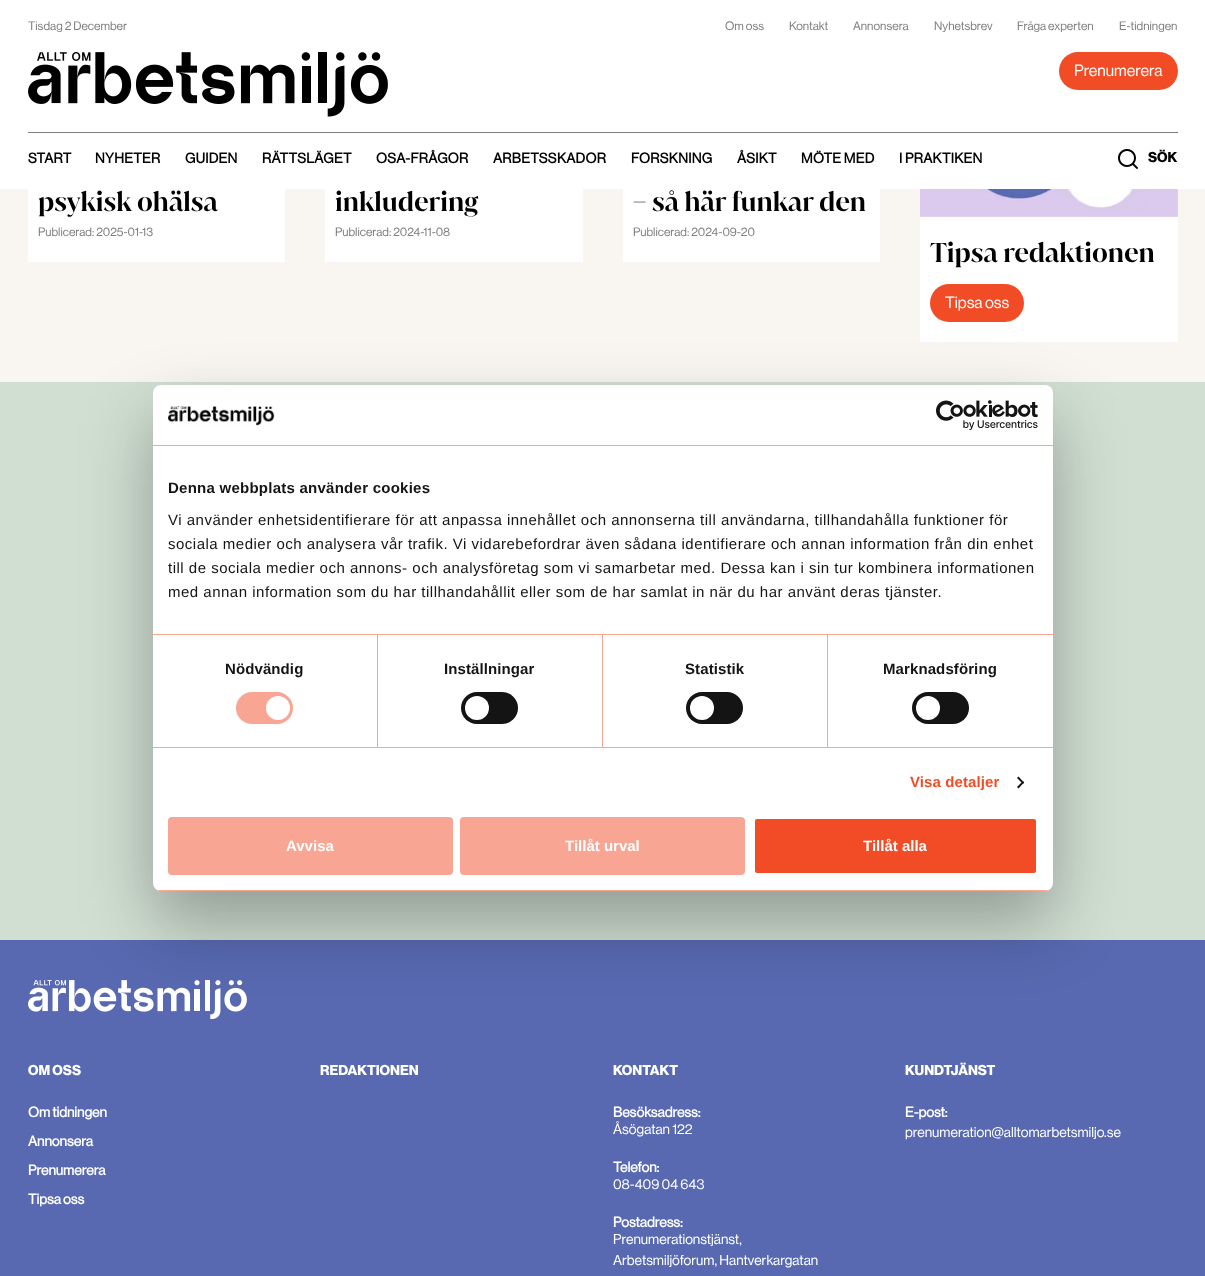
<?xml version="1.0" encoding="UTF-8"?>
<svg xmlns="http://www.w3.org/2000/svg" xmlns:xlink="http://www.w3.org/1999/xlink" width="1205" height="1276">
  <defs>
    <clipPath id="clip1"><rect x="153" y="385" width="900" height="506" rx="8" /></clipPath>
  </defs>
  <rect width="100%" height="100%" fill="#f9f5f1" />
  <rect width="1205" height="189" fill="#ffffff" />
  <rect x="28" y="132" width="1150" height="1" fill="#808080" />
  <image x="28" y="52" width="360" height="65" xlink:href="image1.png" />
  <rect x="1059" y="52" width="119" height="38" rx="19" fill="#f24c27" />
  <image x="1118" y="149" width="20" height="20" xlink:href="image2.png" />
  <rect x="28" y="189" width="257" height="73" fill="#ffffff" />
  <rect x="325" y="189" width="258" height="73" fill="#ffffff" />
  <rect x="623" y="189" width="257" height="73" fill="#ffffff" />
  <rect x="920" y="189" width="258" height="153" fill="#ffffff" />
  <image x="920" y="189" width="258" height="28" xlink:href="image3.png" />
  <rect x="930" y="284" width="94" height="38" rx="19" fill="#f24c27" />
  <rect y="382" width="1205" height="558" fill="#d1dfd2" />
  <rect y="940" width="1205" height="336" fill="#5869b1" />
  <image x="28" y="980" width="219" height="39" xlink:href="image4.png" />
  <rect x="153" y="417" width="900" height="506" rx="8" fill="#000000" fill-opacity="0.3" filter="blur(34px)" />
  <rect x="153" y="385" width="900" height="506" rx="8" fill="#ffffff" />
  <rect x="153" y="445" width="900" height="1" fill="#f9a593" />
  <image x="168" y="406" width="107" height="20" xlink:href="image5.png" />
  <image x="936" y="400" width="102" height="30" xlink:href="image6.png" />
  <rect x="153" y="634" width="900" height="1" fill="#f9a593" />
  <rect x="153" y="747" width="900" height="1" fill="#f9a593" />
  <rect x="377" y="635" width="1" height="112" fill="#f9a593" />
  <rect x="236" y="692" width="57" height="32" rx="16" fill="#f9a593" />
  <circle cx="278" cy="708" r="12" fill="#ffffff" />
  <rect x="602" y="635" width="1" height="112" fill="#f9a593" />
  <rect x="461" y="692" width="57" height="32" rx="16" fill="#141414" />
  <circle cx="477" cy="708" r="12" fill="#ffffff" />
  <rect x="827" y="635" width="1" height="112" fill="#f9a593" />
  <rect x="686" y="692" width="57" height="32" rx="16" fill="#141414" />
  <circle cx="702" cy="708" r="12" fill="#ffffff" />
  <rect x="912" y="692" width="57" height="32" rx="16" fill="#141414" />
  <circle cx="928" cy="708" r="12" fill="#ffffff" />
  <path d="M 1018.5 776.5 l 5.5 6 l -1 1.5 l -6 -6 z" fill="#141414" />
  <path d="M 1023 781 l 1 1.5 l -5.5 6 l -1.5 -1.5 z" fill="#141414" />
  <g clip-path="url(#clip1)">
    <rect x="153" y="890" width="900" height="1" fill="#f9a593" />
  </g>
  <rect x="169" y="818" width="283" height="56" rx="3" fill="#f9a593" stroke="#f9a593" stroke-width="2" />
  <rect x="461" y="818" width="283" height="56" rx="3" fill="#f9a593" stroke="#f9a593" stroke-width="2" />
  <rect x="754" y="818" width="283" height="56" rx="3" fill="#f24c27" stroke="#ffffff" stroke-width="2" />
  <text x="28" y="30" style="font-family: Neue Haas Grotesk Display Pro; font-size: 12px; fill: #808080">Tisdag 2 December</text>
  <text x="725" y="30" style="font-family: Neue Haas Grotesk Display Pro; font-size: 12px; fill: #808080">Om oss</text>
  <text x="789" y="30" style="font-family: Neue Haas Grotesk Display Pro; font-size: 12px; fill: #808080">Kontakt</text>
  <text x="853" y="30" style="font-family: Neue Haas Grotesk Display Pro; font-size: 12px; fill: #808080">Annonsera</text>
  <text x="934" y="30" style="font-family: Neue Haas Grotesk Display Pro; font-size: 12px; fill: #808080">Nyhetsbrev</text>
  <text x="1017" y="30" style="font-family: Neue Haas Grotesk Display Pro; font-size: 12px; fill: #808080">Fråga experten</text>
  <text x="1119" y="30" style="font-family: Neue Haas Grotesk Display Pro; font-size: 12px; fill: #808080">E-tidningen</text>
  <text x="1074" y="76" style="font-family: Neue Haas Grotesk Display Pro; font-size: 16px; fill: #ffffff">Prenumerera</text>
  <text x="28" y="163" style="font-family: 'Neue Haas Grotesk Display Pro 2'; font-size: 14px; font-weight: bold; letter-spacing: 0.3px; fill: #000000">START</text>
  <text x="95" y="163" style="font-family: 'Neue Haas Grotesk Display Pro 2'; font-size: 14px; font-weight: bold; letter-spacing: 0.3px; fill: #000000">NYHETER</text>
  <text x="185" y="163" style="font-family: 'Neue Haas Grotesk Display Pro 2'; font-size: 14px; font-weight: bold; letter-spacing: 0.3px; fill: #000000">GUIDEN</text>
  <text x="262" y="163" style="font-family: 'Neue Haas Grotesk Display Pro 2'; font-size: 14px; font-weight: bold; letter-spacing: 0.3px; fill: #000000">RÄTTSLÄGET</text>
  <text x="376" y="163" style="font-family: 'Neue Haas Grotesk Display Pro 2'; font-size: 14px; font-weight: bold; letter-spacing: 0.3px; fill: #000000">OSA-FRÅGOR</text>
  <text x="493" y="163" style="font-family: 'Neue Haas Grotesk Display Pro 2'; font-size: 14px; font-weight: bold; letter-spacing: 0.3px; fill: #000000">ARBETSSKADOR</text>
  <text x="631" y="163" style="font-family: 'Neue Haas Grotesk Display Pro 2'; font-size: 14px; font-weight: bold; letter-spacing: 0.3px; fill: #000000">FORSKNING</text>
  <text x="737" y="163" style="font-family: 'Neue Haas Grotesk Display Pro 2'; font-size: 14px; font-weight: bold; letter-spacing: 0.3px; fill: #000000">ÅSIKT</text>
  <text x="801" y="163" style="font-family: 'Neue Haas Grotesk Display Pro 2'; font-size: 14px; font-weight: bold; letter-spacing: 0.3px; fill: #000000">MÖTE MED</text>
  <text x="899" y="163" style="font-family: 'Neue Haas Grotesk Display Pro 2'; font-size: 14px; font-weight: bold; letter-spacing: 0.3px; fill: #000000">I PRAKTIKEN</text>
  <text x="1148" y="162" style="font-family: Neue Haas Grotesk Display Pro; font-size: 14px; font-weight: bold; fill: #000000">SÖK</text>
  <text x="38" y="211" style="font-family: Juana; font-size: 26px; font-weight: 600; fill: #000000">psykisk ohälsa</text>
  <text x="38" y="236" style="font-family: Neue Haas Grotesk Display Pro; font-size: 12px; fill: #808080">Publicerad: 2025-01-13</text>
  <text x="335" y="211" style="font-family: Juana; font-size: 26px; font-weight: 600; fill: #000000">inkludering</text>
  <text x="335" y="236" style="font-family: Neue Haas Grotesk Display Pro; font-size: 12px; fill: #808080">Publicerad: 2024-11-08</text>
  <text x="633" y="211" style="font-family: Juana; font-size: 26px; font-weight: 600; fill: #000000">– så här funkar den</text>
  <text x="633" y="236" style="font-family: Neue Haas Grotesk Display Pro; font-size: 12px; fill: #808080">Publicerad: 2024-09-20</text>
  <text x="930" y="262" style="font-family: Juana; font-size: 26px; font-weight: 600; fill: #000000">Tipsa redaktionen</text>
  <text x="945" y="308" style="font-family: Neue Haas Grotesk Display Pro; font-size: 16px; fill: #ffffff">Tipsa oss</text>
  <text x="28" y="1075" style="font-family: Neue Haas Grotesk Display Pro; font-size: 14px; font-weight: bold; fill: #ffffff">OM OSS</text>
  <text x="28" y="1117" style="font-family: 'Neue Haas Grotesk Display Pro 2'; font-size: 14px; font-weight: bold; fill: #ffffff">Om tidningen</text>
  <text x="28" y="1146" style="font-family: 'Neue Haas Grotesk Display Pro 2'; font-size: 14px; font-weight: bold; fill: #ffffff">Annonsera</text>
  <text x="28" y="1175" style="font-family: 'Neue Haas Grotesk Display Pro 2'; font-size: 14px; font-weight: bold; fill: #ffffff">Prenumerera</text>
  <text x="28" y="1204" style="font-family: 'Neue Haas Grotesk Display Pro 2'; font-size: 14px; font-weight: bold; fill: #ffffff">Tipsa oss</text>
  <text x="320" y="1075" style="font-family: Neue Haas Grotesk Display Pro; font-size: 14px; font-weight: bold; fill: #ffffff">REDAKTIONEN</text>
  <text x="613" y="1075" style="font-family: Neue Haas Grotesk Display Pro; font-size: 14px; font-weight: bold; fill: #ffffff">KONTAKT</text>
  <text x="613" y="1117" style="font-family: 'Neue Haas Grotesk Display Pro 2'; font-size: 14px; font-weight: bold; fill: #ffffff">Besöksadress:</text>
  <text x="613" y="1134" style="font-family: Neue Haas Grotesk Display Pro; font-size: 14px; fill: #ffffff">Åsögatan 122</text>
  <text x="613" y="1172" style="font-family: 'Neue Haas Grotesk Display Pro 2'; font-size: 14px; font-weight: bold; fill: #ffffff">Telefon:</text>
  <text x="613" y="1189" style="font-family: Neue Haas Grotesk Display Pro; font-size: 14px; fill: #ffffff">08-409 04 643</text>
  <text x="613" y="1227" style="font-family: 'Neue Haas Grotesk Display Pro 2'; font-size: 14px; font-weight: bold; fill: #ffffff">Postadress:</text>
  <text x="613" y="1244" style="font-family: Neue Haas Grotesk Display Pro; font-size: 14px; fill: #ffffff">Prenumerationstjänst,</text>
  <text x="613" y="1265" style="font-family: Neue Haas Grotesk Display Pro; font-size: 14px; fill: #ffffff">Arbetsmiljöforum, Hantverkargatan</text>
  <text x="905" y="1075" style="font-family: Neue Haas Grotesk Display Pro; font-size: 14px; font-weight: bold; fill: #ffffff">KUNDTJÄNST</text>
  <text x="905" y="1117" style="font-family: 'Neue Haas Grotesk Display Pro 2'; font-size: 14px; font-weight: bold; fill: #ffffff">E-post:</text>
  <text x="905" y="1137" style="font-family: Neue Haas Grotesk Display Pro; font-size: 14px; fill: #ffffff">prenumeration@alltomarbetsmiljo.se</text>
  <text x="168" y="493" style="font-family: Liberation Sans; font-size: 15px; font-weight: bold; letter-spacing: 0.25px; fill: #141414">Denna webbplats använder cookies</text>
  <text x="168" y="525" style="font-family: Liberation Sans; font-size: 15px; letter-spacing: 0.5px; fill: #141414">Vi använder enhetsidentifierare för att anpassa innehållet och annonserna till användarna, tillhandahålla funktioner för</text>
  <text x="168" y="549" style="font-family: Liberation Sans; font-size: 15px; letter-spacing: 0.5px; fill: #141414">sociala medier och analysera vår trafik. Vi vidarebefordrar även sådana identifierare och annan information från din enhet</text>
  <text x="168" y="573" style="font-family: Liberation Sans; font-size: 15px; letter-spacing: 0.5px; fill: #141414">till de sociala medier och annons- och analysföretag som vi samarbetar med. Dessa kan i sin tur kombinera informationen</text>
  <text x="168" y="597" style="font-family: Liberation Sans; font-size: 15px; letter-spacing: 0.5px; fill: #141414">med annan information som du har tillhandahållit eller som de har samlat in när du har använt deras tjänster.</text>
  <text x="225" y="674" style="font-family: Liberation Sans; font-size: 15px; font-weight: bold; letter-spacing: 0.1px; fill: #141414">Nödvändig</text>
  <text x="444" y="674" style="font-family: Liberation Sans; font-size: 15px; font-weight: bold; letter-spacing: 0.1px; fill: #141414">Inställningar</text>
  <text x="685" y="674" style="font-family: Liberation Sans; font-size: 15px; font-weight: bold; letter-spacing: 0.1px; fill: #141414">Statistik</text>
  <text x="883" y="674" style="font-family: Liberation Sans; font-size: 15px; font-weight: bold; letter-spacing: 0.1px; fill: #141414">Marknadsföring</text>
  <text x="910" y="787" style="font-family: Liberation Sans; font-size: 15px; font-weight: bold; letter-spacing: 0.1px; fill: #f24c27">Visa detaljer</text>
  <text x="286" y="851" style="font-family: Liberation Sans; font-size: 15px; font-weight: bold; fill: #ffffff">Avvisa</text>
  <text x="565" y="851" style="font-family: Liberation Sans; font-size: 15px; font-weight: bold; fill: #ffffff">Tillåt urval</text>
  <text x="863" y="851" style="font-family: Liberation Sans; font-size: 15px; font-weight: bold; fill: #ffffff">Tillåt alla</text>
</svg>
